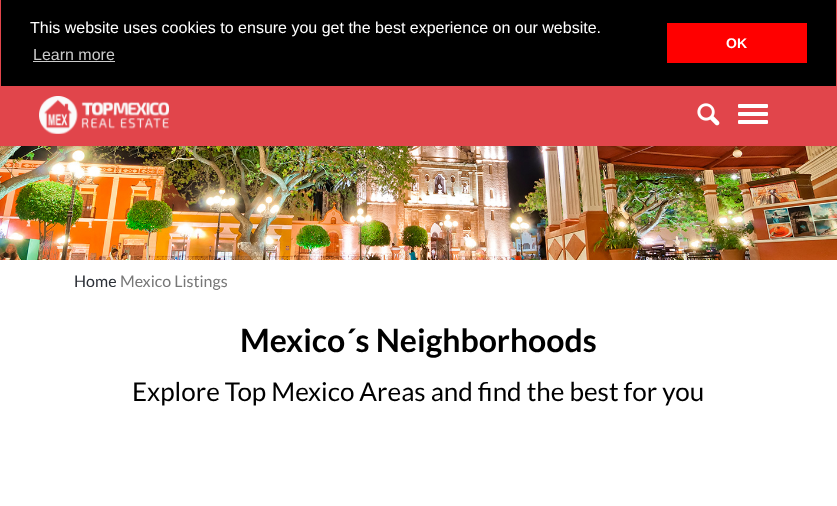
<?xml version="1.0" encoding="UTF-8"?>
<svg xmlns="http://www.w3.org/2000/svg" xmlns:xlink="http://www.w3.org/1999/xlink" width="837" height="506">
  <rect width="100%" height="100%" fill="#ffffff" />
  <rect width="837" height="146" fill="#e1454b" />
  <rect x="1" width="835" height="86" fill="#000000" />
  <rect x="33" y="61" width="82" height="1" fill="#cccccc" />
  <rect x="667" y="23" width="140" height="40" fill="#ff0000" />
  <image x="39" y="96" width="130" height="38" xlink:href="image1.png" />
  <image x="697" y="103" width="23" height="23" xlink:href="image2.png" />
  <rect x="738" y="104" width="30" height="4" rx="1" fill="#ffffff" />
  <rect x="738" y="112" width="30" height="4" rx="1" fill="#ffffff" />
  <rect x="738" y="120" width="30" height="4" rx="1" fill="#ffffff" />
  <image x="0" y="146" width="837" height="114" xlink:href="image3.png" />
  <text x="30" y="33" style="font-family: Liberation Sans; font-size: 16px; fill: #ffffff">This website uses cookies to ensure you get the best experience on our website.</text>
  <text x="33" y="60" style="font-family: Liberation Sans; font-size: 16px; fill: #cccccc">Learn more</text>
  <text x="726" y="48" style="font-family: Liberation Sans; font-size: 14px; font-weight: bold; fill: #ffffff">OK</text>
  <text x="74" y="287" style="font-family: Lato; font-size: 16px; fill: #2c3037">Home</text>
  <text x="120" y="287" style="font-family: Lato; font-size: 16px; fill: #777777">Mexico Listings</text>
  <text x="240" y="352" style="font-family: Lato; font-size: 32px; font-weight: bold; fill: #000000">Mexico´s Neighborhoods</text>
  <text x="132" y="401" style="font-family: Lato; font-size: 26px; fill: #000000">Explore Top Mexico Areas and find the best for you</text>
</svg>
